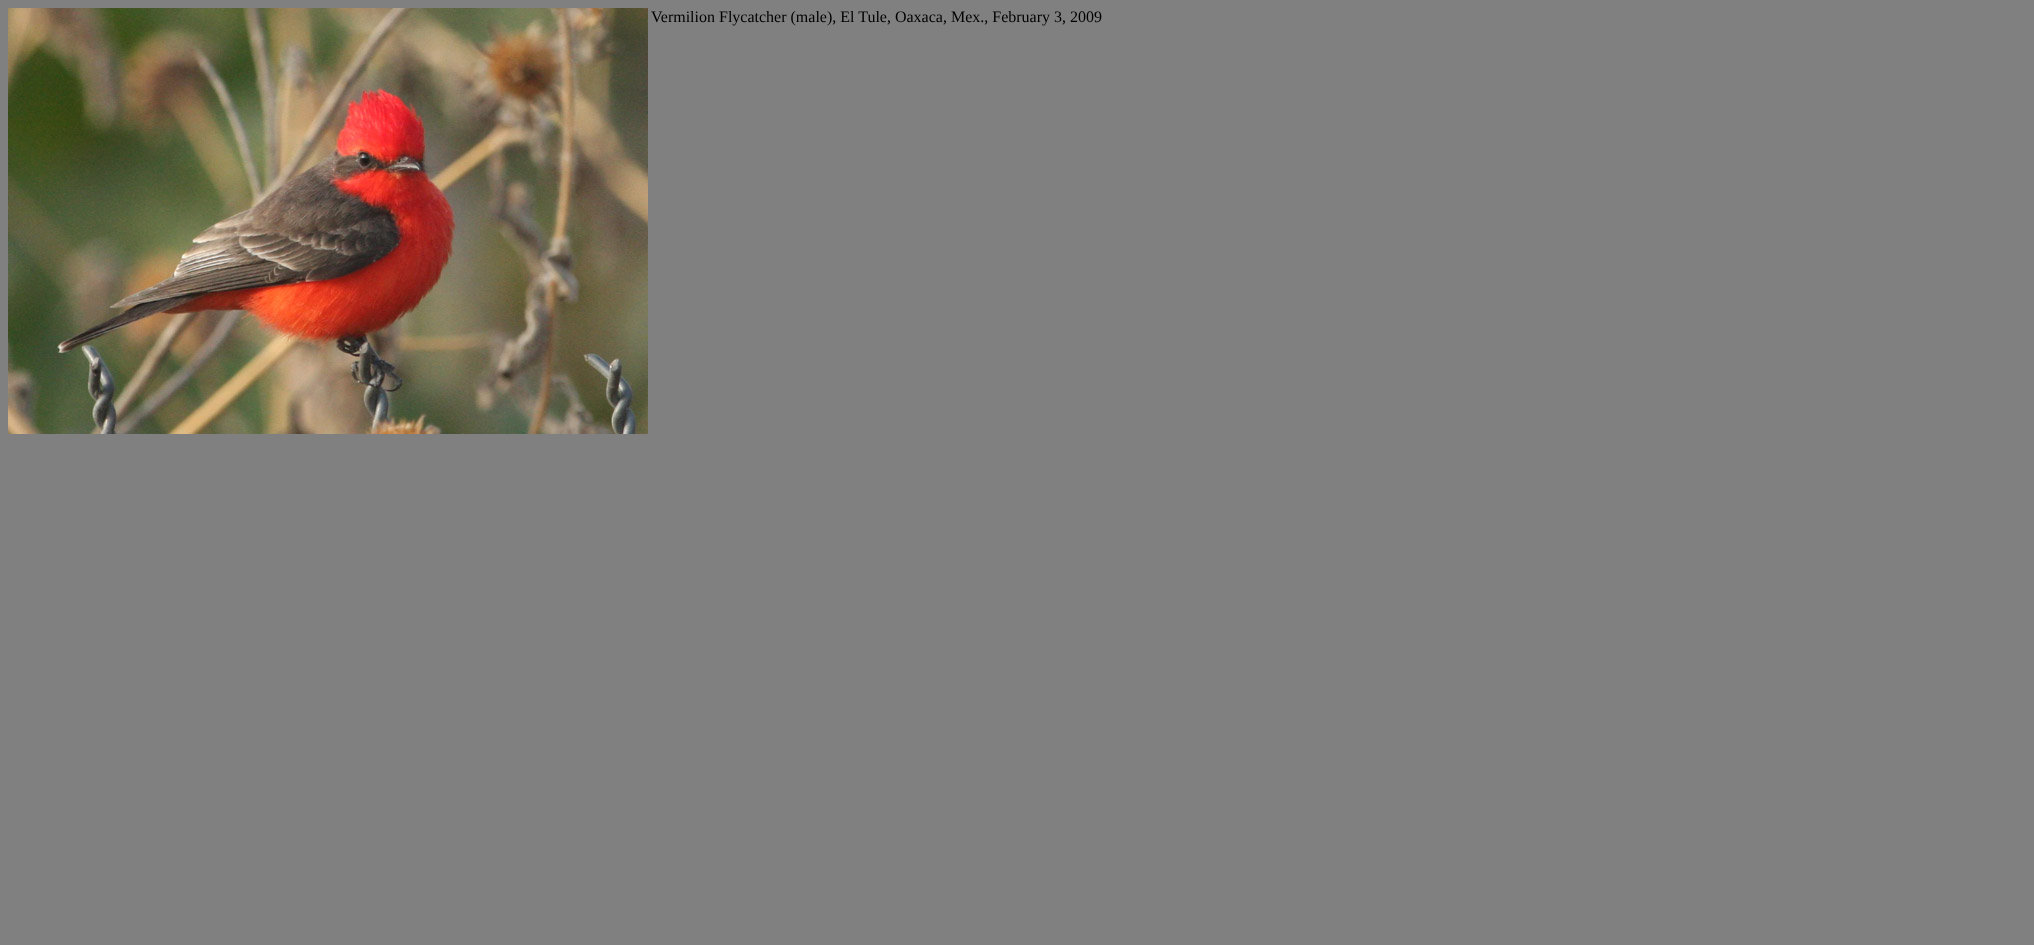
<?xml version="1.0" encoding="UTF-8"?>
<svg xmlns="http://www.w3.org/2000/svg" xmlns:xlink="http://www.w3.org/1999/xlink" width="2034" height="945">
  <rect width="100%" height="100%" fill="#808080" />
  <image x="8" y="8" width="640" height="426" xlink:href="image1.png" />
  <text x="651" y="22" style="font-family: Liberation Serif; font-size: 16px; fill: #000000">Vermilion Flycatcher (male), El Tule, Oaxaca, Mex., February 3, 2009</text>
</svg>
